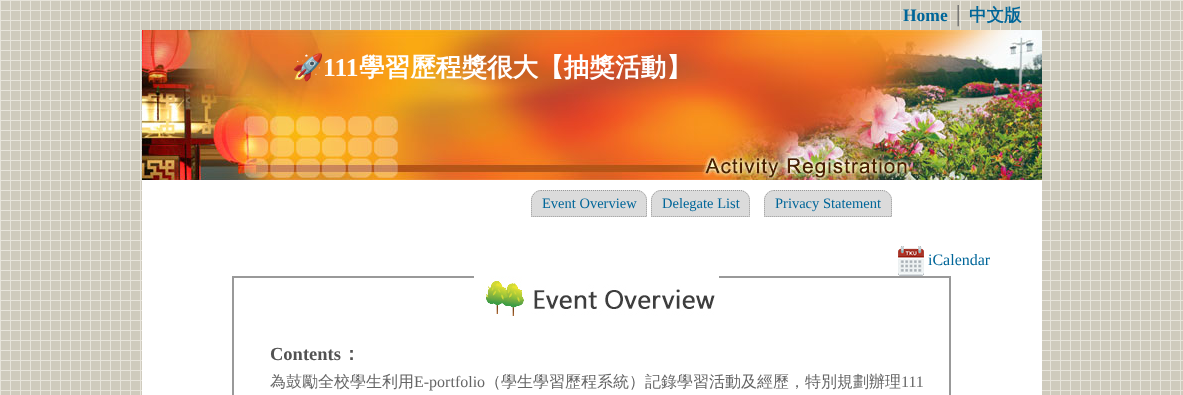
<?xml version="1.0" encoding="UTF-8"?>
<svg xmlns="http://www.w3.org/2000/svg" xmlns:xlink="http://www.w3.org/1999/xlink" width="1183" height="395">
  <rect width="100%" height="100%" fill="#ffffff" />
  <image x="0" y="0" width="1183" height="395" xlink:href="image1.png" />
  <image x="142" y="30" width="900" height="150" xlink:href="image2.png" />
  <rect x="142" y="180" width="900" height="215" fill="#ffffff" />
  <path d="M 541 190 h 96 c 5.5 0 10 4.5 10 10 v 17 h -116 v -17 c 0 -5.5 4.5 -10 10 -10 z" fill="#dbdbdb" />
  <path d="M 541 190.5 h 96 c 5 0 9.5 4.5 9.5 9.5 v 16.5 h -115 v -16.5 c 0 -5 4.5 -9.5 9.5 -9.5 z" fill="none" stroke="#999999" stroke-dasharray="1 1" />
  <path d="M 661 190 h 79 c 5.5 0 10 4.5 10 10 v 17 h -99 v -17 c 0 -5.5 4.5 -10 10 -10 z" fill="#dbdbdb" />
  <path d="M 661 190.5 h 79 c 5 0 9.5 4.5 9.5 9.5 v 16.5 h -98 v -16.5 c 0 -5 4.5 -9.5 9.5 -9.5 z" fill="none" stroke="#999999" stroke-dasharray="1 1" />
  <path d="M 774 190 h 108 c 5.5 0 10 4.5 10 10 v 17 h -128 v -17 c 0 -5.5 4.5 -10 10 -10 z" fill="#dbdbdb" />
  <path d="M 774 190.5 h 108 c 5 0 9.5 4.5 9.5 9.5 v 16.5 h -127 v -16.5 c 0 -5 4.5 -9.5 9.5 -9.5 z" fill="none" stroke="#999999" stroke-dasharray="1 1" />
  <image x="898" y="246" width="26" height="30" xlink:href="image3.png" />
  <rect x="233" y="277" width="717" height="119" fill="none" stroke="#999999" stroke-width="2" />
  <image x="474" y="276" width="245" height="40" xlink:href="image4.png" />
  <text x="903" y="21" style="font-family: Liberation Serif; font-size: 17.5px; font-weight: bold; fill: #006699">Home</text>
  <text x="952" y="21" style="font-family: Liberation Serif; font-size: 17.5px; font-weight: bold; fill: #666666">│</text>
  <text x="969" y="21" style="font-family: WenQuanYi Zen Hei; font-size: 17.5px; font-weight: bold; fill: #006699">中文版</text>
  <text x="292" y="76" style="font-family: Noto Color Emoji; font-size: 25.6px; font-weight: bold; fill: #ffffff">🚀</text>
  <text x="323" y="76" style="font-family: Liberation Serif; font-size: 25.6px; font-weight: bold; fill: #ffffff">111</text>
  <text x="359" y="76" style="font-family: WenQuanYi Zen Hei; font-size: 25.6px; font-weight: bold; fill: #ffffff">學習歷程獎很大【抽獎活動】</text>
  <text x="542" y="208" style="font-family: Liberation Serif; font-size: 14.5px; fill: #006699">Event Overview</text>
  <text x="662" y="208" style="font-family: Liberation Serif; font-size: 14.5px; fill: #006699">Delegate List</text>
  <text x="775" y="208" style="font-family: Liberation Serif; font-size: 14.5px; fill: #006699">Privacy Statement</text>
  <text x="928" y="265" style="font-family: Liberation Serif; font-size: 16px; fill: #006699">iCalendar</text>
  <text x="270" y="360" style="font-family: Liberation Serif; font-size: 18.5px; font-weight: bold; fill: #525252">Contents</text>
  <text x="342" y="360" style="font-family: WenQuanYi Zen Hei; font-size: 18.5px; font-weight: bold; fill: #525252">：</text>
  <text x="270" y="387" style="font-family: WenQuanYi Zen Hei; font-size: 16px; font-weight: 500; fill: #666666">為鼓勵全校學生利用</text>
  <text x="414" y="387" style="font-family: Liberation Serif; font-size: 16px; fill: #666666">E-portfolio</text>
  <text x="485" y="387" style="font-family: WenQuanYi Zen Hei; font-size: 16px; font-weight: 500; fill: #666666">（學生學習歷程系統）記錄學習活動及經歷，特別規劃辦理</text>
  <text x="901" y="387" style="font-family: Liberation Serif; font-size: 16px; fill: #666666">111</text>
</svg>
